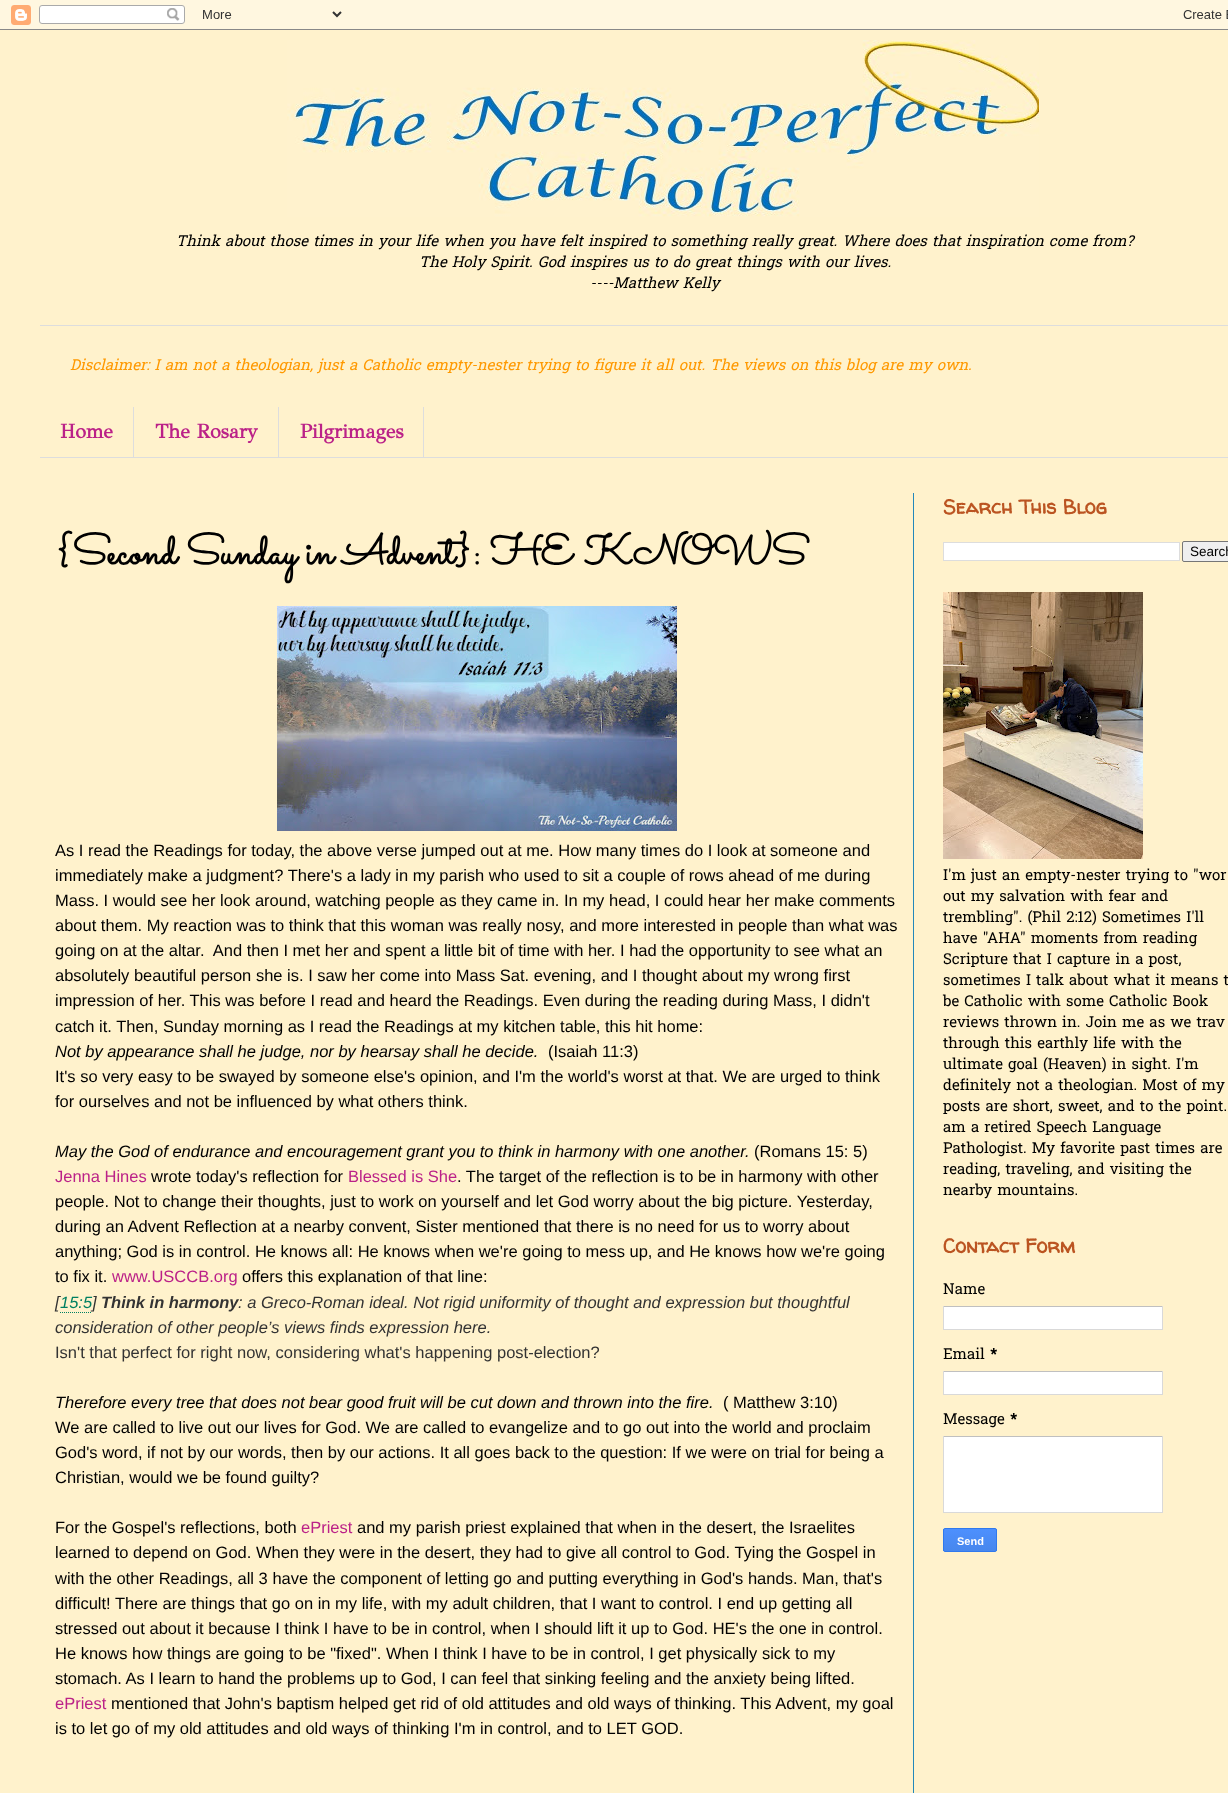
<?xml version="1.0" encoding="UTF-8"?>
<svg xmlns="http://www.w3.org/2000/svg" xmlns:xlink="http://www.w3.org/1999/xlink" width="1228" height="1793">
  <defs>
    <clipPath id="clip1"><rect x="943" y="1528" width="54" height="24" rx="2" /></clipPath>
    <linearGradient id="g1" gradientUnits="userSpaceOnUse" x1="970" y1="1529" x2="970" y2="1551"><stop offset="0" stop-color="#4d90fe" /><stop offset="1" stop-color="#4787ed" /></linearGradient>
  </defs>
  <rect width="100%" height="100%" fill="#fff2cc" />
  <image x="0" y="0" width="1228" height="30" xlink:href="image1.png" />
  <image x="287" y="40" width="752" height="177" xlink:href="image2.png" />
  <rect x="40" y="325" width="1188" height="1" fill="#dddddd" />
  <rect x="40" y="457" width="1188" height="1" fill="#dddddd" />
  <rect x="133" y="407" width="1" height="50" fill="#dddddd" />
  <rect x="278" y="407" width="1" height="50" fill="#dddddd" />
  <rect x="423" y="407" width="1" height="50" fill="#dddddd" />
  <rect x="913" y="493" width="1" height="1300" fill="#2288bb" />
  <image x="277" y="606" width="400" height="225" xlink:href="image3.png" />
  <path d="M 60 1312.5 h 32" fill="none" stroke="#008061" stroke-dasharray="1 1" />
  <rect x="943.5" y="542.5" width="236" height="18" fill="#ffffff" stroke="#dddddd" />
  <rect x="1182.5" y="541.5" width="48" height="20" rx="1.5" fill="#efefef" stroke="#767676" />
  <image x="943" y="592" width="200" height="267" xlink:href="image4.png" />
  <rect x="944" y="1307" width="218" height="22" fill="#ffffff" />
  <rect x="943" y="1306" width="220" height="1" fill="#c0c0c0" />
  <rect x="1162" y="1306" width="1" height="24" fill="#d9d9d9" />
  <rect x="943" y="1329" width="220" height="1" fill="#d9d9d9" />
  <rect x="943" y="1306" width="1" height="24" fill="#d9d9d9" />
  <rect x="944" y="1372" width="218" height="22" fill="#ffffff" />
  <rect x="943" y="1371" width="220" height="1" fill="#c0c0c0" />
  <rect x="1162" y="1371" width="1" height="24" fill="#d9d9d9" />
  <rect x="943" y="1394" width="220" height="1" fill="#d9d9d9" />
  <rect x="943" y="1371" width="1" height="24" fill="#d9d9d9" />
  <rect x="944" y="1437" width="218" height="75" fill="#ffffff" />
  <rect x="943" y="1436" width="220" height="1" fill="#c0c0c0" />
  <rect x="1162" y="1436" width="1" height="77" fill="#d9d9d9" />
  <rect x="943" y="1512" width="220" height="1" fill="#d9d9d9" />
  <rect x="943" y="1436" width="1" height="77" fill="#d9d9d9" />
  <g clip-path="url(#clip1)">
    <rect x="943" y="1529" width="54" height="22" fill="url(#g1)" />
  </g>
  <rect x="943.5" y="1528.5" width="53" height="23" rx="1.5" fill="none" stroke="#3079ed" />
  <text x="176" y="246" style="font-family: Hanuman; font-size: 15px; font-style: italic; fill: #000000">Think about those times in your life when you have felt inspired to something really great. Where does that inspiration come from?</text>
  <text x="419" y="267" style="font-family: Hanuman; font-size: 15px; font-style: italic; fill: #000000">The Holy Spirit. God inspires us to do great things with our lives.</text>
  <text x="590" y="288" style="font-family: Hanuman; font-size: 15px; font-style: italic; fill: #000000">----Matthew Kelly</text>
  <text x="70" y="370" style="font-family: Hanuman; font-size: 15px; font-style: italic; fill: #ff9900">Disclaimer: I am not a theologian, just a Catholic empty-nester trying to figure it all out. The views on this blog are my own.</text>
  <text x="60" y="438" style="font-family: GFS Didot; font-size: 20px; font-weight: bold; fill: #bb2188">Home</text>
  <text x="155" y="438" style="font-family: GFS Didot; font-size: 20px; font-weight: bold; fill: #bb2188">The Rosary</text>
  <text x="300" y="438" style="font-family: GFS Didot; font-size: 20px; font-weight: bold; fill: #bb2188">Pilgrimages</text>
  <text x="55" y="564" style="font-family: Sacramento; font-size: 42px; font-weight: bold; fill: #000000">{Second Sunday in Advent}: HE KNOWS</text>
  <text x="55" y="856" style="font-family: Liberation Sans; font-size: 16.5px; fill: #000000">As I read the Readings for today, the above verse jumped out at me. How many times do I look at someone and</text>
  <text x="55" y="881" style="font-family: Liberation Sans; font-size: 16.5px; fill: #000000">immediately make a judgment? There's a lady in my parish who used to sit a couple of rows ahead of me during</text>
  <text x="55" y="906" style="font-family: Liberation Sans; font-size: 16.5px; fill: #000000">Mass. I would see her look around, watching people as they came in. In my head, I could hear her make comments</text>
  <text x="55" y="931" style="font-family: Liberation Sans; font-size: 16.5px; fill: #000000">about them. My reaction was to think that this woman was really nosy, and more interested in people than what was</text>
  <text x="55" y="956" style="font-family: Liberation Sans; font-size: 16.5px; fill: #000000" xml:space="preserve">going on at the altar.  And then I met her and spent a little bit of time with her. I had the opportunity to see what an</text>
  <text x="55" y="981" style="font-family: Liberation Sans; font-size: 16.5px; fill: #000000">absolutely beautiful person she is. I saw her come into Mass Sat. evening, and I thought about my wrong first</text>
  <text x="55" y="1006" style="font-family: Liberation Sans; font-size: 16.5px; fill: #000000">impression of her. This was before I read and heard the Readings. Even during the reading during Mass, I didn't</text>
  <text x="55" y="1032" style="font-family: Liberation Sans; font-size: 16.5px; fill: #000000">catch it. Then, Sunday morning as I read the Readings at my kitchen table, this hit home:</text>
  <text x="55" y="1057" style="font-family: Liberation Sans; font-size: 16.5px; font-style: italic; fill: #000000">Not by appearance shall he judge, nor by hearsay shall he decide.</text>
  <text x="548" y="1057" style="font-family: Liberation Sans; font-size: 16.5px; fill: #000000">(Isaiah 11:3)</text>
  <text x="55" y="1082" style="font-family: Liberation Sans; font-size: 16.5px; fill: #000000">It's so very easy to be swayed by someone else's opinion, and I'm the world's worst at that. We are urged to think</text>
  <text x="55" y="1107" style="font-family: Liberation Sans; font-size: 16.5px; fill: #000000">for ourselves and not be influenced by what others think.</text>
  <text x="55" y="1157" style="font-family: Liberation Sans; font-size: 16.5px; font-style: italic; fill: #000000">May the God of endurance and encouragement grant you to think in harmony with one another.</text>
  <text x="754" y="1157" style="font-family: Liberation Sans; font-size: 16.5px; fill: #000000">(Romans 15: 5)</text>
  <text x="55" y="1182" style="font-family: Liberation Sans; font-size: 16.5px; fill: #bb2188">Jenna Hines</text>
  <text x="151" y="1182" style="font-family: Liberation Sans; font-size: 16.5px; fill: #000000">wrote today's reflection for</text>
  <text x="348" y="1182" style="font-family: Liberation Sans; font-size: 16.5px; fill: #bb2188">Blessed is She</text>
  <text x="457" y="1182" style="font-family: Liberation Sans; font-size: 16.5px; fill: #000000">. The target of the reflection is to be in harmony with other</text>
  <text x="55" y="1207" style="font-family: Liberation Sans; font-size: 16.5px; fill: #000000">people. Not to change their thoughts, just to work on yourself and let God worry about the big picture. Yesterday,</text>
  <text x="55" y="1232" style="font-family: Liberation Sans; font-size: 16.5px; fill: #000000">during an Advent Reflection at a nearby convent, Sister mentioned that there is no need for us to worry about</text>
  <text x="55" y="1257" style="font-family: Liberation Sans; font-size: 16.5px; fill: #000000">anything; God is in control. He knows all: He knows when we're going to mess up, and He knows how we're going</text>
  <text x="55" y="1282" style="font-family: Liberation Sans; font-size: 16.5px; fill: #000000">to fix it.</text>
  <text x="112" y="1282" style="font-family: Liberation Sans; font-size: 16.5px; fill: #bb2188">www.USCCB.org</text>
  <text x="242" y="1282" style="font-family: Liberation Sans; font-size: 16.5px; fill: #000000">offers this explanation of that line:</text>
  <text x="55" y="1308" style="font-family: Liberation Sans; font-size: 16.5px; font-style: italic; fill: #333333">[</text>
  <text x="60" y="1308" style="font-family: Liberation Sans; font-size: 16.5px; font-style: italic; fill: #008061">15:5</text>
  <text x="92" y="1308" style="font-family: Liberation Sans; font-size: 16.5px; font-style: italic; fill: #333333">]</text>
  <text x="101" y="1308" style="font-family: Liberation Sans; font-size: 16.5px; font-weight: bold; font-style: italic; fill: #333333">Think in harmony</text>
  <text x="238" y="1308" style="font-family: Liberation Sans; font-size: 16.5px; font-style: italic; fill: #333333">: a Greco-Roman ideal. Not rigid uniformity of thought and expression but thoughtful</text>
  <text x="55" y="1333" style="font-family: Liberation Sans; font-size: 16.5px; font-style: italic; fill: #333333">consideration of other people’s views finds expression here.</text>
  <text x="55" y="1358" style="font-family: Liberation Sans; font-size: 16.5px; fill: #333333">Isn't that perfect for right now, considering what's happening post-election?</text>
  <text x="55" y="1408" style="font-family: Liberation Sans; font-size: 16.5px; font-style: italic; fill: #000000">Therefore every tree that does not bear good fruit will be cut down and thrown into the fire.</text>
  <text x="723" y="1408" style="font-family: Liberation Sans; font-size: 16.5px; fill: #000000">( Matthew 3:10)</text>
  <text x="55" y="1433" style="font-family: Liberation Sans; font-size: 16.5px; fill: #000000">We are called to live out our lives for God. We are called to evangelize and to go out into the world and proclaim</text>
  <text x="55" y="1458" style="font-family: Liberation Sans; font-size: 16.5px; fill: #000000">God's word, if not by our words, then by our actions. It all goes back to the question: If we were on trial for being a</text>
  <text x="55" y="1483" style="font-family: Liberation Sans; font-size: 16.5px; fill: #000000">Christian, would we be found guilty?</text>
  <text x="55" y="1533" style="font-family: Liberation Sans; font-size: 16.5px; fill: #000000">For the Gospel's reflections, both</text>
  <text x="301" y="1533" style="font-family: Liberation Sans; font-size: 16.5px; fill: #bb2188">ePriest</text>
  <text x="357" y="1533" style="font-family: Liberation Sans; font-size: 16.5px; fill: #000000">and my parish priest explained that when in the desert, the Israelites</text>
  <text x="55" y="1558" style="font-family: Liberation Sans; font-size: 16.5px; fill: #000000">learned to depend on God. When they were in the desert, they had to give all control to God. Tying the Gospel in</text>
  <text x="55" y="1584" style="font-family: Liberation Sans; font-size: 16.5px; fill: #000000">with the other Readings, all 3 have the component of letting go and putting everything in God's hands. Man, that's</text>
  <text x="55" y="1609" style="font-family: Liberation Sans; font-size: 16.5px; fill: #000000">difficult! There are things that go on in my life, with my adult children, that I want to control. I end up getting all</text>
  <text x="55" y="1634" style="font-family: Liberation Sans; font-size: 16.5px; fill: #000000">stressed out about it because I think I have to be in control, when I should lift it up to God. HE's the one in control.</text>
  <text x="55" y="1659" style="font-family: Liberation Sans; font-size: 16.5px; fill: #000000">He knows how things are going to be "fixed". When I think I have to be in control, I get physically sick to my</text>
  <text x="55" y="1684" style="font-family: Liberation Sans; font-size: 16.5px; fill: #000000">stomach. As I learn to hand the problems up to God, I can feel that sinking feeling and the anxiety being lifted.</text>
  <text x="55" y="1709" style="font-family: Liberation Sans; font-size: 16.5px; fill: #bb2188">ePriest</text>
  <text x="111" y="1709" style="font-family: Liberation Sans; font-size: 16.5px; fill: #000000">mentioned that John's baptism helped get rid of old attitudes and old ways of thinking. This Advent, my goal</text>
  <text x="55" y="1734" style="font-family: Liberation Sans; font-size: 16.5px; fill: #000000">is to let go of my old attitudes and old ways of thinking I'm in control, and to LET GOD.</text>
  <text x="943" y="514" style="font-family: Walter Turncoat; font-size: 20px; font-weight: bold; fill: #bb5421">Search This Blog</text>
  <text x="1190" y="556" style="font-family: Liberation Sans; font-size: 13.5px; fill: #000000">Search</text>
  <text x="943" y="880" style="font-family: Hanuman; font-size: 15px; fill: #000000">I'm just an empty-nester trying to "wor</text>
  <text x="943" y="901" style="font-family: Hanuman; font-size: 15px; fill: #000000">out my salvation with fear and</text>
  <text x="943" y="922" style="font-family: Hanuman; font-size: 15px; fill: #000000">trembling". (Phil 2:12) Sometimes I'll</text>
  <text x="943" y="943" style="font-family: Hanuman; font-size: 15px; fill: #000000">have "AHA" moments from reading</text>
  <text x="943" y="964" style="font-family: Hanuman; font-size: 15px; fill: #000000">Scripture that I capture in a post,</text>
  <text x="943" y="985" style="font-family: Hanuman; font-size: 15px; fill: #000000">sometimes I talk about what it means t</text>
  <text x="943" y="1006" style="font-family: Hanuman; font-size: 15px; fill: #000000">be Catholic with some Catholic Book</text>
  <text x="943" y="1027" style="font-family: Hanuman; font-size: 15px; fill: #000000">reviews thrown in. Join me as we trav</text>
  <text x="943" y="1048" style="font-family: Hanuman; font-size: 15px; fill: #000000">through this earthly life with the</text>
  <text x="943" y="1069" style="font-family: Hanuman; font-size: 15px; fill: #000000">ultimate goal (Heaven) in sight. I'm</text>
  <text x="943" y="1090" style="font-family: Hanuman; font-size: 15px; fill: #000000">definitely not a theologian. Most of my</text>
  <text x="943" y="1111" style="font-family: Hanuman; font-size: 15px; fill: #000000">posts are short, sweet, and to the point.</text>
  <text x="943" y="1132" style="font-family: Hanuman; font-size: 15px; fill: #000000">am a retired Speech Language</text>
  <text x="943" y="1153" style="font-family: Hanuman; font-size: 15px; fill: #000000">Pathologist. My favorite past times are</text>
  <text x="943" y="1174" style="font-family: Hanuman; font-size: 15px; fill: #000000">reading, traveling, and visiting the</text>
  <text x="943" y="1195" style="font-family: Hanuman; font-size: 15px; fill: #000000">nearby mountains.</text>
  <text x="943" y="1253" style="font-family: Walter Turncoat; font-size: 20px; font-weight: bold; fill: #bb5421">Contact Form</text>
  <text x="943" y="1294" style="font-family: Hanuman; font-size: 15px; fill: #000000">Name</text>
  <text x="943" y="1359" style="font-family: Hanuman; font-size: 15px; fill: #000000">Email</text>
  <text x="990" y="1359" style="font-family: Hanuman; font-size: 15px; font-weight: bold; fill: #000000">*</text>
  <text x="943" y="1424" style="font-family: Hanuman; font-size: 15px; fill: #000000">Message</text>
  <text x="1010" y="1424" style="font-family: Hanuman; font-size: 15px; font-weight: bold; fill: #000000">*</text>
  <text x="957" y="1545" style="font-family: Liberation Sans; font-size: 11px; font-weight: bold; fill: #ffffff">Send</text>
</svg>
